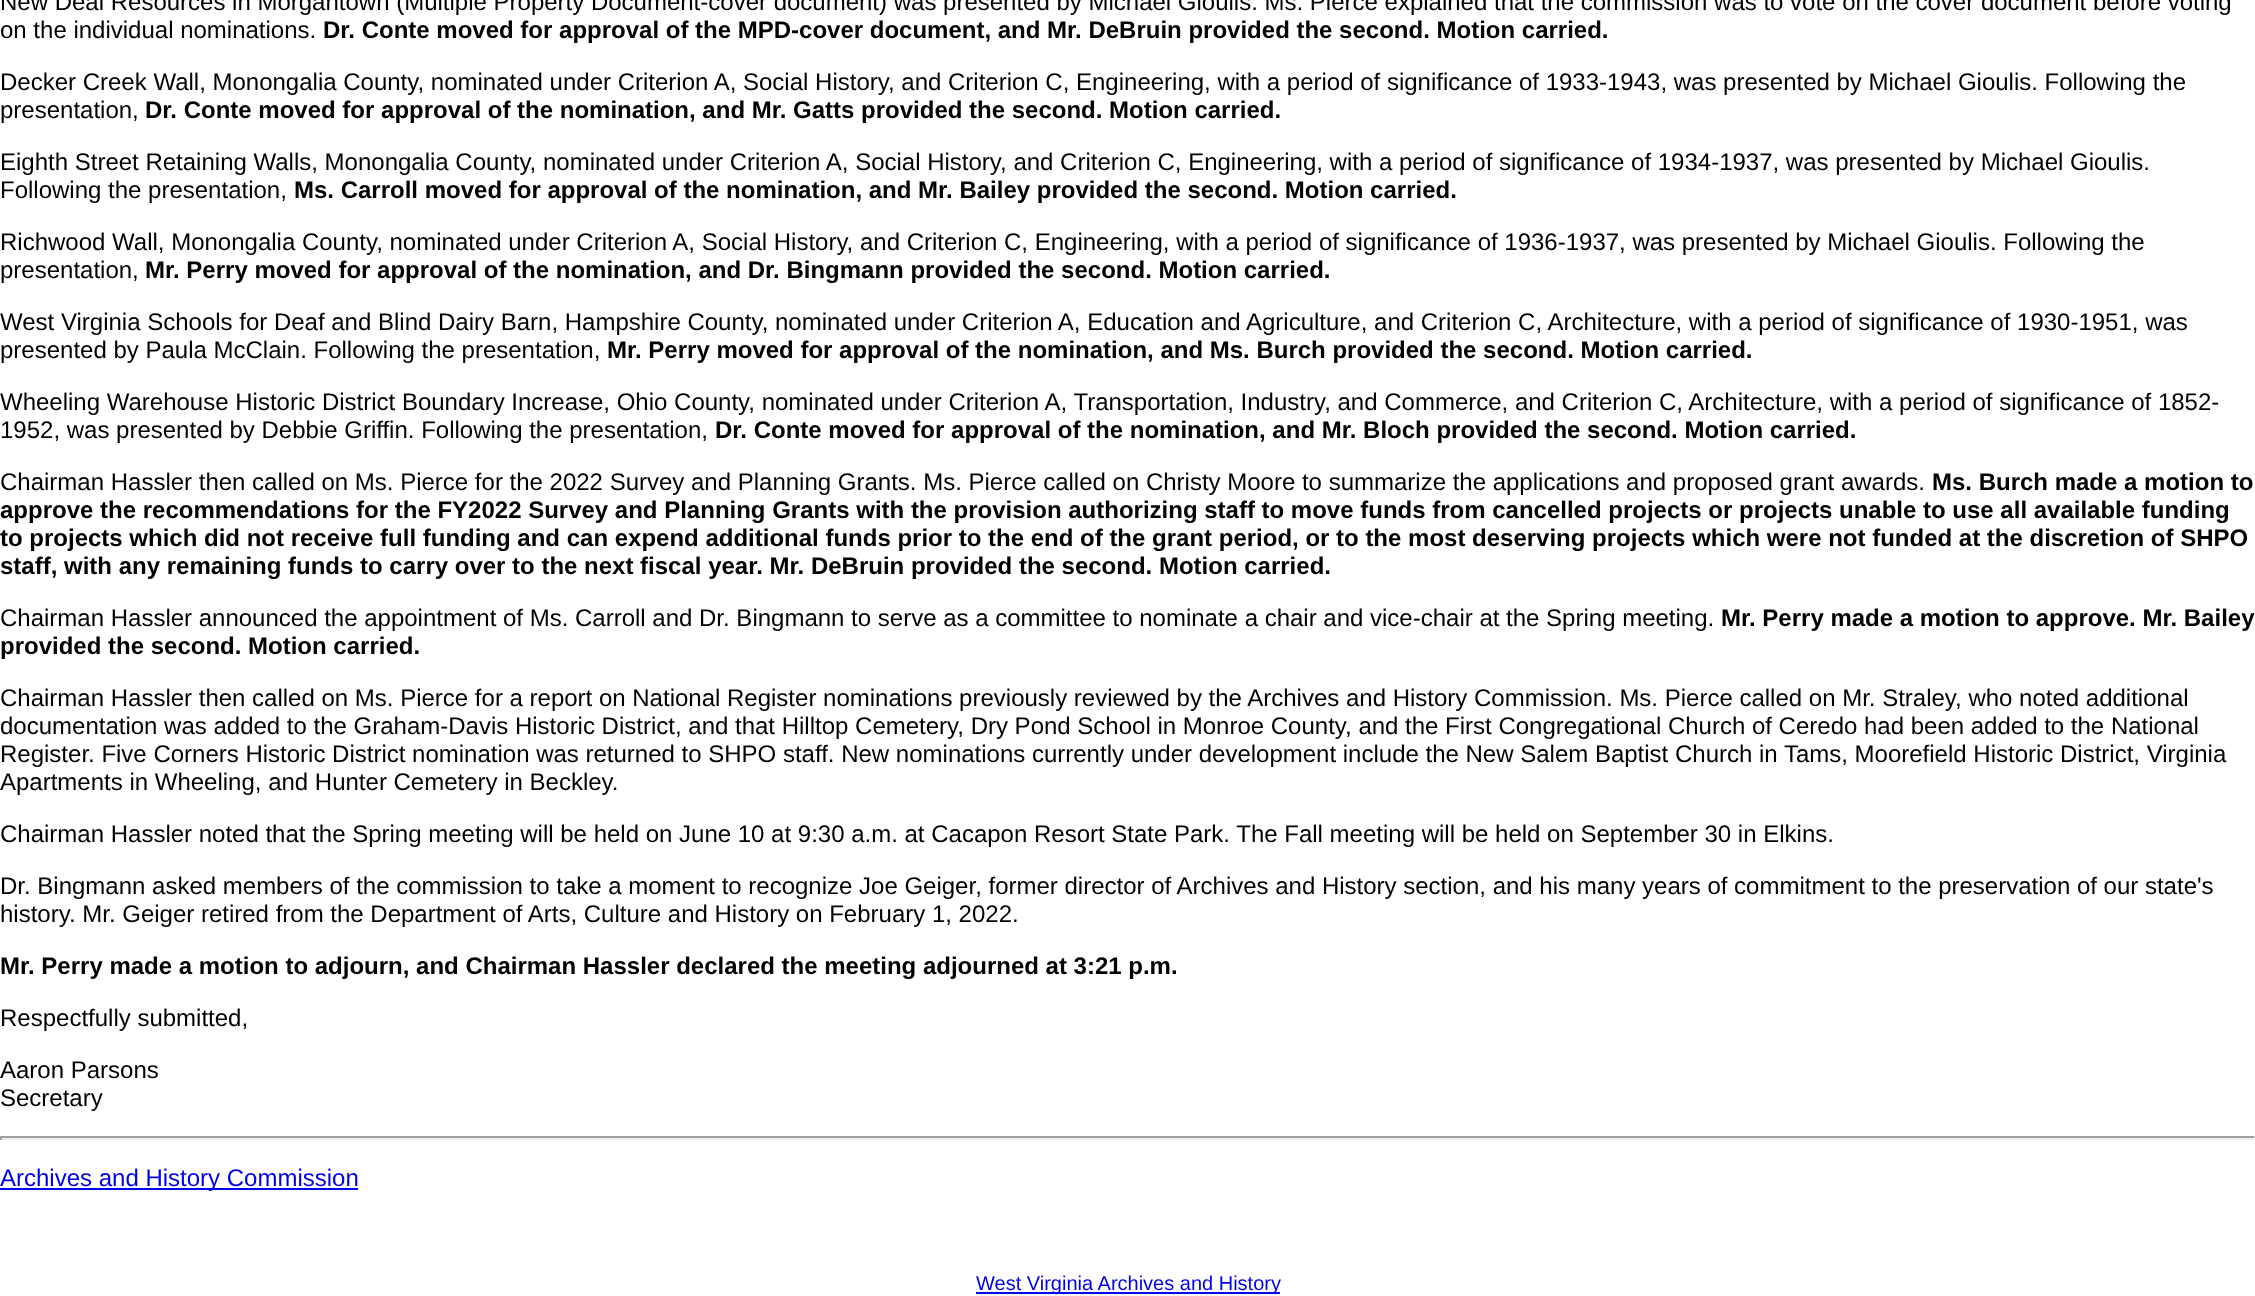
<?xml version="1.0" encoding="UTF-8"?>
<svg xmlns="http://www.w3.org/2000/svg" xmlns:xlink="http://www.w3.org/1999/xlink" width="2255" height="1296">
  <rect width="100%" height="100%" fill="#ffffff" />
  <rect y="1136" width="2255" height="2" fill="#9f9f9f" />
  <rect x="2254" y="1136" width="1" height="4" fill="#eeeeee" />
  <rect y="1138" width="2255" height="2" fill="#eeeeee" />
  <rect y="1136" width="2" height="4" fill="#9f9f9f" />
  <rect y="1188" width="358" height="2" fill="#0000ee" />
  <rect x="976" y="1292" width="304" height="2" fill="#0000ee" />
  <text x="0" y="10" style="font-family: Liberation Sans; font-size: 24px; fill: #000000">New Deal Resources in Morgantown (Multiple Property Document-cover document) was presented by Michael Gioulis. Ms. Pierce explained that the commission was to vote on the cover document before voting</text>
  <text x="0" y="38" style="font-family: Liberation Sans; font-size: 24px; fill: #000000">on the individual nominations.</text>
  <text x="323" y="38" style="font-family: Liberation Sans; font-size: 24px; font-weight: bold; fill: #000000">Dr. Conte moved for approval of the MPD-cover document, and Mr. DeBruin provided the second. Motion carried.</text>
  <text x="0" y="90" style="font-family: Liberation Sans; font-size: 24px; fill: #000000">Decker Creek Wall, Monongalia County, nominated under Criterion A, Social History, and Criterion C, Engineering, with a period of significance of 1933-1943, was presented by Michael Gioulis. Following the</text>
  <text x="0" y="118" style="font-family: Liberation Sans; font-size: 24px; fill: #000000">presentation,</text>
  <text x="145" y="118" style="font-family: Liberation Sans; font-size: 24px; font-weight: bold; fill: #000000">Dr. Conte moved for approval of the nomination, and Mr. Gatts provided the second. Motion carried.</text>
  <text x="0" y="170" style="font-family: Liberation Sans; font-size: 24px; fill: #000000">Eighth Street Retaining Walls, Monongalia County, nominated under Criterion A, Social History, and Criterion C, Engineering, with a period of significance of 1934-1937, was presented by Michael Gioulis.</text>
  <text x="0" y="198" style="font-family: Liberation Sans; font-size: 24px; fill: #000000">Following the presentation,</text>
  <text x="294" y="198" style="font-family: Liberation Sans; font-size: 24px; font-weight: bold; fill: #000000">Ms. Carroll moved for approval of the nomination, and Mr. Bailey provided the second. Motion carried.</text>
  <text x="0" y="250" style="font-family: Liberation Sans; font-size: 24px; fill: #000000">Richwood Wall, Monongalia County, nominated under Criterion A, Social History, and Criterion C, Engineering, with a period of significance of 1936-1937, was presented by Michael Gioulis. Following the</text>
  <text x="0" y="278" style="font-family: Liberation Sans; font-size: 24px; fill: #000000">presentation,</text>
  <text x="145" y="278" style="font-family: Liberation Sans; font-size: 24px; font-weight: bold; fill: #000000">Mr. Perry moved for approval of the nomination, and Dr. Bingmann provided the second. Motion carried.</text>
  <text x="0" y="330" style="font-family: Liberation Sans; font-size: 24px; fill: #000000">West Virginia Schools for Deaf and Blind Dairy Barn, Hampshire County, nominated under Criterion A, Education and Agriculture, and Criterion C, Architecture, with a period of significance of 1930-1951, was</text>
  <text x="0" y="358" style="font-family: Liberation Sans; font-size: 24px; fill: #000000">presented by Paula McClain. Following the presentation,</text>
  <text x="607" y="358" style="font-family: Liberation Sans; font-size: 24px; font-weight: bold; fill: #000000">Mr. Perry moved for approval of the nomination, and Ms. Burch provided the second. Motion carried.</text>
  <text x="0" y="410" style="font-family: Liberation Sans; font-size: 24px; fill: #000000">Wheeling Warehouse Historic District Boundary Increase, Ohio County, nominated under Criterion A, Transportation, Industry, and Commerce, and Criterion C, Architecture, with a period of significance of 1852-</text>
  <text x="0" y="438" style="font-family: Liberation Sans; font-size: 24px; fill: #000000">1952, was presented by Debbie Griffin. Following the presentation,</text>
  <text x="715" y="438" style="font-family: Liberation Sans; font-size: 24px; font-weight: bold; fill: #000000">Dr. Conte moved for approval of the nomination, and Mr. Bloch provided the second. Motion carried.</text>
  <text x="0" y="490" style="font-family: Liberation Sans; font-size: 24px; fill: #000000">Chairman Hassler then called on Ms. Pierce for the 2022 Survey and Planning Grants. Ms. Pierce called on Christy Moore to summarize the applications and proposed grant awards.</text>
  <text x="1932" y="490" style="font-family: Liberation Sans; font-size: 24px; font-weight: bold; fill: #000000">Ms. Burch made a motion to</text>
  <text x="0" y="518" style="font-family: Liberation Sans; font-size: 24px; font-weight: bold; fill: #000000">approve the recommendations for the FY2022 Survey and Planning Grants with the provision authorizing staff to move funds from cancelled projects or projects unable to use all available funding</text>
  <text x="0" y="546" style="font-family: Liberation Sans; font-size: 24px; font-weight: bold; fill: #000000">to projects which did not receive full funding and can expend additional funds prior to the end of the grant period, or to the most deserving projects which were not funded at the discretion of SHPO</text>
  <text x="0" y="574" style="font-family: Liberation Sans; font-size: 24px; font-weight: bold; fill: #000000">staff, with any remaining funds to carry over to the next fiscal year. Mr. DeBruin provided the second. Motion carried.</text>
  <text x="0" y="626" style="font-family: Liberation Sans; font-size: 24px; fill: #000000">Chairman Hassler announced the appointment of Ms. Carroll and Dr. Bingmann to serve as a committee to nominate a chair and vice-chair at the Spring meeting.</text>
  <text x="1721" y="626" style="font-family: Liberation Sans; font-size: 24px; font-weight: bold; fill: #000000">Mr. Perry made a motion to approve. Mr. Bailey</text>
  <text x="0" y="654" style="font-family: Liberation Sans; font-size: 24px; font-weight: bold; fill: #000000">provided the second. Motion carried.</text>
  <text x="0" y="706" style="font-family: Liberation Sans; font-size: 24px; fill: #000000">Chairman Hassler then called on Ms. Pierce for a report on National Register nominations previously reviewed by the Archives and History Commission. Ms. Pierce called on Mr. Straley, who noted additional</text>
  <text x="0" y="734" style="font-family: Liberation Sans; font-size: 24px; fill: #000000">documentation was added to the Graham-Davis Historic District, and that Hilltop Cemetery, Dry Pond School in Monroe County, and the First Congregational Church of Ceredo had been added to the National</text>
  <text x="0" y="762" style="font-family: Liberation Sans; font-size: 24px; fill: #000000">Register. Five Corners Historic District nomination was returned to SHPO staff. New nominations currently under development include the New Salem Baptist Church in Tams, Moorefield Historic District, Virginia</text>
  <text x="0" y="790" style="font-family: Liberation Sans; font-size: 24px; fill: #000000">Apartments in Wheeling, and Hunter Cemetery in Beckley.</text>
  <text x="0" y="842" style="font-family: Liberation Sans; font-size: 24px; fill: #000000">Chairman Hassler noted that the Spring meeting will be held on June 10 at 9:30 a.m. at Cacapon Resort State Park. The Fall meeting will be held on September 30 in Elkins.</text>
  <text x="0" y="894" style="font-family: Liberation Sans; font-size: 24px; fill: #000000">Dr. Bingmann asked members of the commission to take a moment to recognize Joe Geiger, former director of Archives and History section, and his many years of commitment to the preservation of our state's</text>
  <text x="0" y="922" style="font-family: Liberation Sans; font-size: 24px; fill: #000000">history. Mr. Geiger retired from the Department of Arts, Culture and History on February 1, 2022.</text>
  <text x="0" y="974" style="font-family: Liberation Sans; font-size: 24px; font-weight: bold; fill: #000000">Mr. Perry made a motion to adjourn, and Chairman Hassler declared the meeting adjourned at 3:21 p.m.</text>
  <text x="0" y="1026" style="font-family: Liberation Sans; font-size: 24px; fill: #000000">Respectfully submitted,</text>
  <text x="0" y="1078" style="font-family: Liberation Sans; font-size: 24px; fill: #000000">Aaron Parsons</text>
  <text x="0" y="1106" style="font-family: Liberation Sans; font-size: 24px; fill: #000000">Secretary</text>
  <text x="0" y="1186" style="font-family: Liberation Sans; font-size: 24px; fill: #0000ee">Archives and History Commission</text>
  <text x="976" y="1290" style="font-family: Liberation Sans; font-size: 20px; fill: #0000ee">West Virginia Archives and History</text>
</svg>
